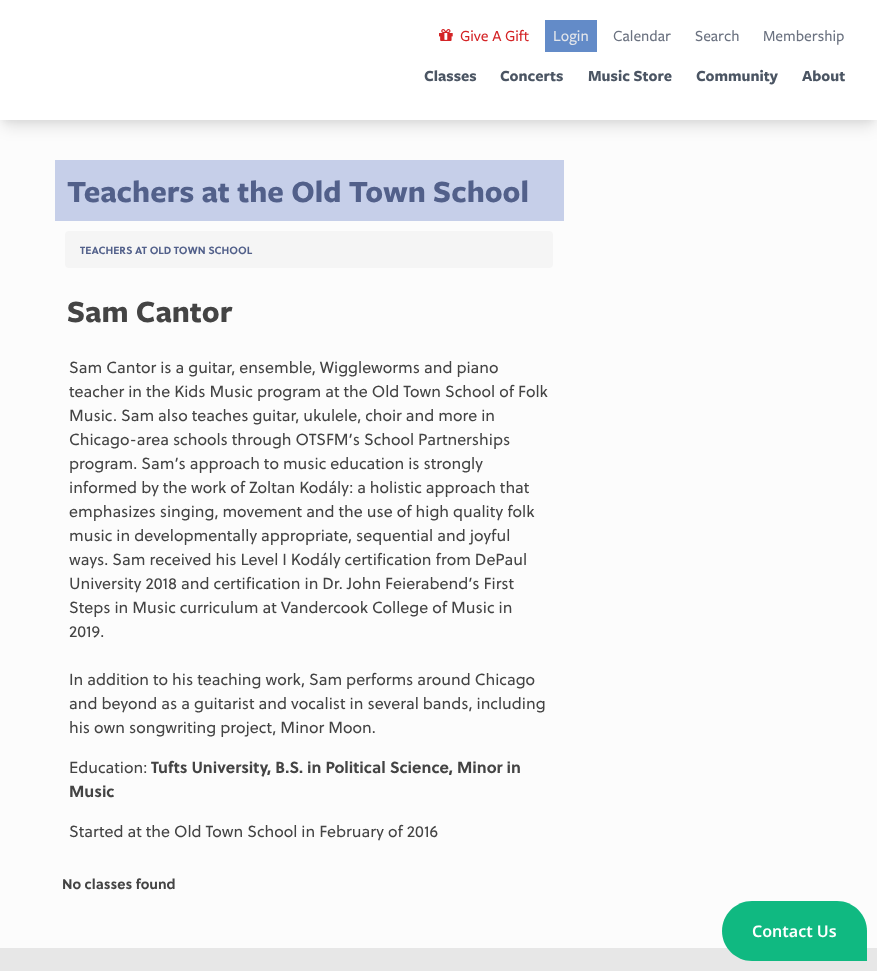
<?xml version="1.0" encoding="UTF-8"?>
<svg xmlns="http://www.w3.org/2000/svg" xmlns:xlink="http://www.w3.org/1999/xlink" width="877" height="971">
  <rect width="100%" height="100%" fill="#e7e7e7" />
  <rect y="120" width="877" height="828" fill="#fcfcfc" />
  <rect x="2" y="6" width="873" height="116" fill="#000000" fill-opacity="0.05" filter="blur(3px)" />
  <rect x="3" y="13" width="871" height="114" fill="#000000" fill-opacity="0.1" filter="blur(7.5px)" />
  <rect width="877" height="120" fill="#ffffff" />
  <image x="439" y="29" width="14" height="12" xlink:href="image1.png" />
  <rect x="545" y="20" width="52" height="32" fill="#638bc8" />
  <rect x="55" y="160" width="509" height="61" fill="#c6cfe9" />
  <rect x="65" y="231" width="488" height="37" rx="4" fill="#f5f5f5" />
  <path d="M 752 901 h 85 c 16.5 0 30 13.5 30 30 v 30 h -115 c -16.5 0 -30 -13.5 -30 -30 c 0 -16.5 13.5 -30 30 -30 z" fill="#10b981" />
  <text x="460" y="41" style="font-family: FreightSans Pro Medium; font-size: 16px; font-weight: 500; fill: #d42426">Give A Gift</text>
  <text x="553" y="41" style="font-family: FreightSans Pro Medium; font-size: 16px; font-weight: 500; fill: #e5e7eb">Login</text>
  <text x="613" y="41" style="font-family: FreightSans Pro Medium; font-size: 16px; font-weight: 500; fill: #6b7280">Calendar</text>
  <text x="695" y="41" style="font-family: FreightSans Pro Medium; font-size: 16px; font-weight: 500; fill: #6b7280">Search</text>
  <text x="763" y="41" style="font-family: FreightSans Pro Medium; font-size: 16px; font-weight: 500; fill: #6b7280">Membership</text>
  <text x="424" y="81" style="font-family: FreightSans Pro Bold; font-size: 16px; font-weight: bold; fill: #4b5563">Classes</text>
  <text x="500" y="81" style="font-family: FreightSans Pro Bold; font-size: 16px; font-weight: bold; fill: #4b5563">Concerts</text>
  <text x="588" y="81" style="font-family: FreightSans Pro Bold; font-size: 16px; font-weight: bold; fill: #4b5563">Music Store</text>
  <text x="696" y="81" style="font-family: FreightSans Pro Bold; font-size: 16px; font-weight: bold; fill: #4b5563">Community</text>
  <text x="802" y="81" style="font-family: FreightSans Pro Bold; font-size: 16px; font-weight: bold; fill: #4b5563">About</text>
  <text x="67" y="202" style="font-family: FreightSans Pro Bold; font-size: 32px; font-weight: bold; fill: #52608a">Teachers at the Old Town School</text>
  <text x="80" y="254" style="font-family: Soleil; font-size: 10.5px; font-weight: bold; fill: #52608a">TEACHERS AT OLD TOWN SCHOOL</text>
  <text x="67" y="322" style="font-family: FreightSans Pro Bold; font-size: 32px; font-weight: bold; fill: #444444">Sam Cantor</text>
  <text x="69" y="373" style="font-family: Soleil; font-size: 16px; fill: #444444">Sam Cantor is a guitar, ensemble, Wiggleworms and piano</text>
  <text x="69" y="397" style="font-family: Soleil; font-size: 16px; fill: #444444">teacher in the Kids Music program at the Old Town School of Folk</text>
  <text x="69" y="421" style="font-family: Soleil; font-size: 16px; fill: #444444">Music. Sam also teaches guitar, ukulele, choir and more in</text>
  <text x="69" y="445" style="font-family: Soleil; font-size: 16px; fill: #444444">Chicago-area schools through OTSFM’s School Partnerships</text>
  <text x="69" y="469" style="font-family: Soleil; font-size: 16px; fill: #444444">program. Sam’s approach to music education is strongly</text>
  <text x="69" y="493" style="font-family: Soleil; font-size: 16px; fill: #444444">informed by the work of Zoltan Kodály: a holistic approach that</text>
  <text x="69" y="517" style="font-family: Soleil; font-size: 16px; fill: #444444">emphasizes singing, movement and the use of high quality folk</text>
  <text x="69" y="541" style="font-family: Soleil; font-size: 16px; fill: #444444">music in developmentally appropriate, sequential and joyful</text>
  <text x="69" y="565" style="font-family: Soleil; font-size: 16px; fill: #444444">ways. Sam received his Level I Kodály certification from DePaul</text>
  <text x="69" y="589" style="font-family: Soleil; font-size: 16px; fill: #444444">University 2018 and certification in Dr. John Feierabend’s First</text>
  <text x="69" y="613" style="font-family: Soleil; font-size: 16px; fill: #444444">Steps in Music curriculum at Vandercook College of Music in</text>
  <text x="69" y="637" style="font-family: Soleil; font-size: 16px; fill: #444444">2019.</text>
  <text x="69" y="685" style="font-family: Soleil; font-size: 16px; fill: #444444">In addition to his teaching work, Sam performs around Chicago</text>
  <text x="69" y="709" style="font-family: Soleil; font-size: 16px; fill: #444444">and beyond as a guitarist and vocalist in several bands, including</text>
  <text x="69" y="733" style="font-family: Soleil; font-size: 16px; fill: #444444">his own songwriting project, Minor Moon.</text>
  <text x="69" y="773" style="font-family: Soleil; font-size: 16px; fill: #444444">Education:</text>
  <text x="151" y="773" style="font-family: Soleil; font-size: 16px; font-weight: bold; fill: #444444">Tufts University, B.S. in Political Science, Minor in</text>
  <text x="69" y="797" style="font-family: Soleil; font-size: 16px; font-weight: bold; fill: #444444">Music</text>
  <text x="69" y="837" style="font-family: Soleil; font-size: 16px; fill: #444444">Started at the Old Town School in February of 2016</text>
  <text x="62" y="889" style="font-family: Soleil; font-size: 14px; font-weight: bold; fill: #444444">No classes found</text>
  <text x="752" y="937" style="font-family: Noto Sans; font-size: 16px; font-weight: 600; fill: #ffffff">Contact Us</text>
</svg>
